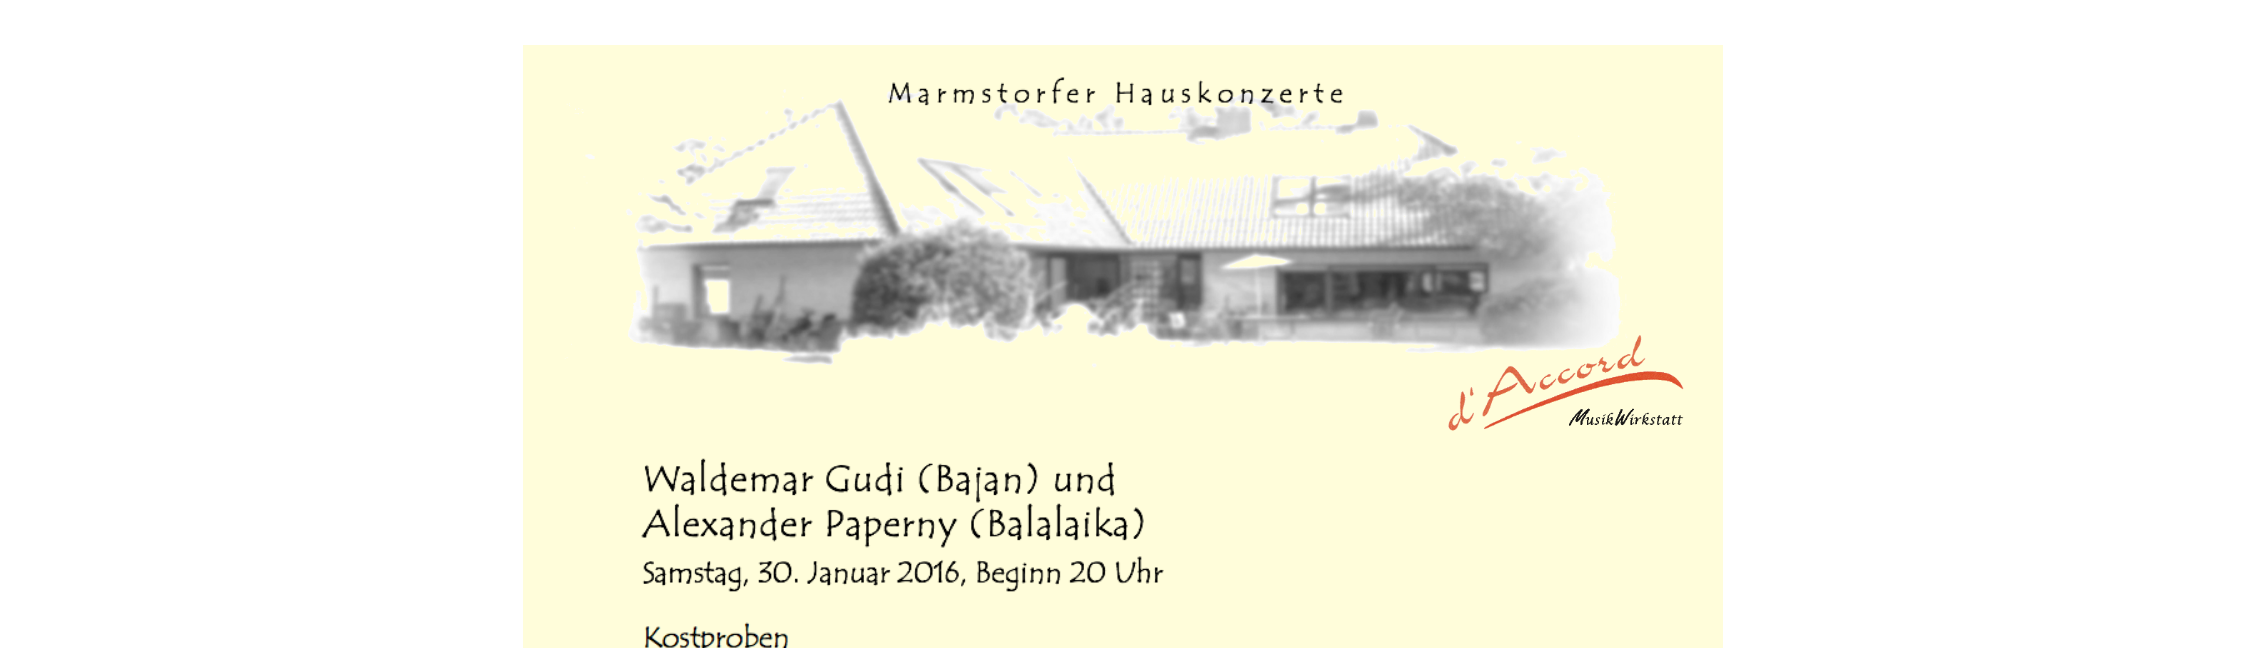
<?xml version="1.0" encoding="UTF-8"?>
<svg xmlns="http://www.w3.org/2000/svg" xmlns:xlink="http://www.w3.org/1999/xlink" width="2244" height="648">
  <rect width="100%" height="100%" fill="#ffffff" />
  <rect x="523" y="45" width="1200" height="603" fill="#fffdda" />
  <image x="564" y="89" width="1064" height="279" xlink:href="image2.png" />
  <image x="888" y="77" width="455" height="29" xlink:href="image1.png" />
  <image x="1448" y="335" width="236" height="96" xlink:href="image3.png" />
  <image x="641" y="458" width="523" height="134" xlink:href="image4.png" />
  <image x="644" y="622" width="145" height="26" xlink:href="image5.png" />
</svg>
